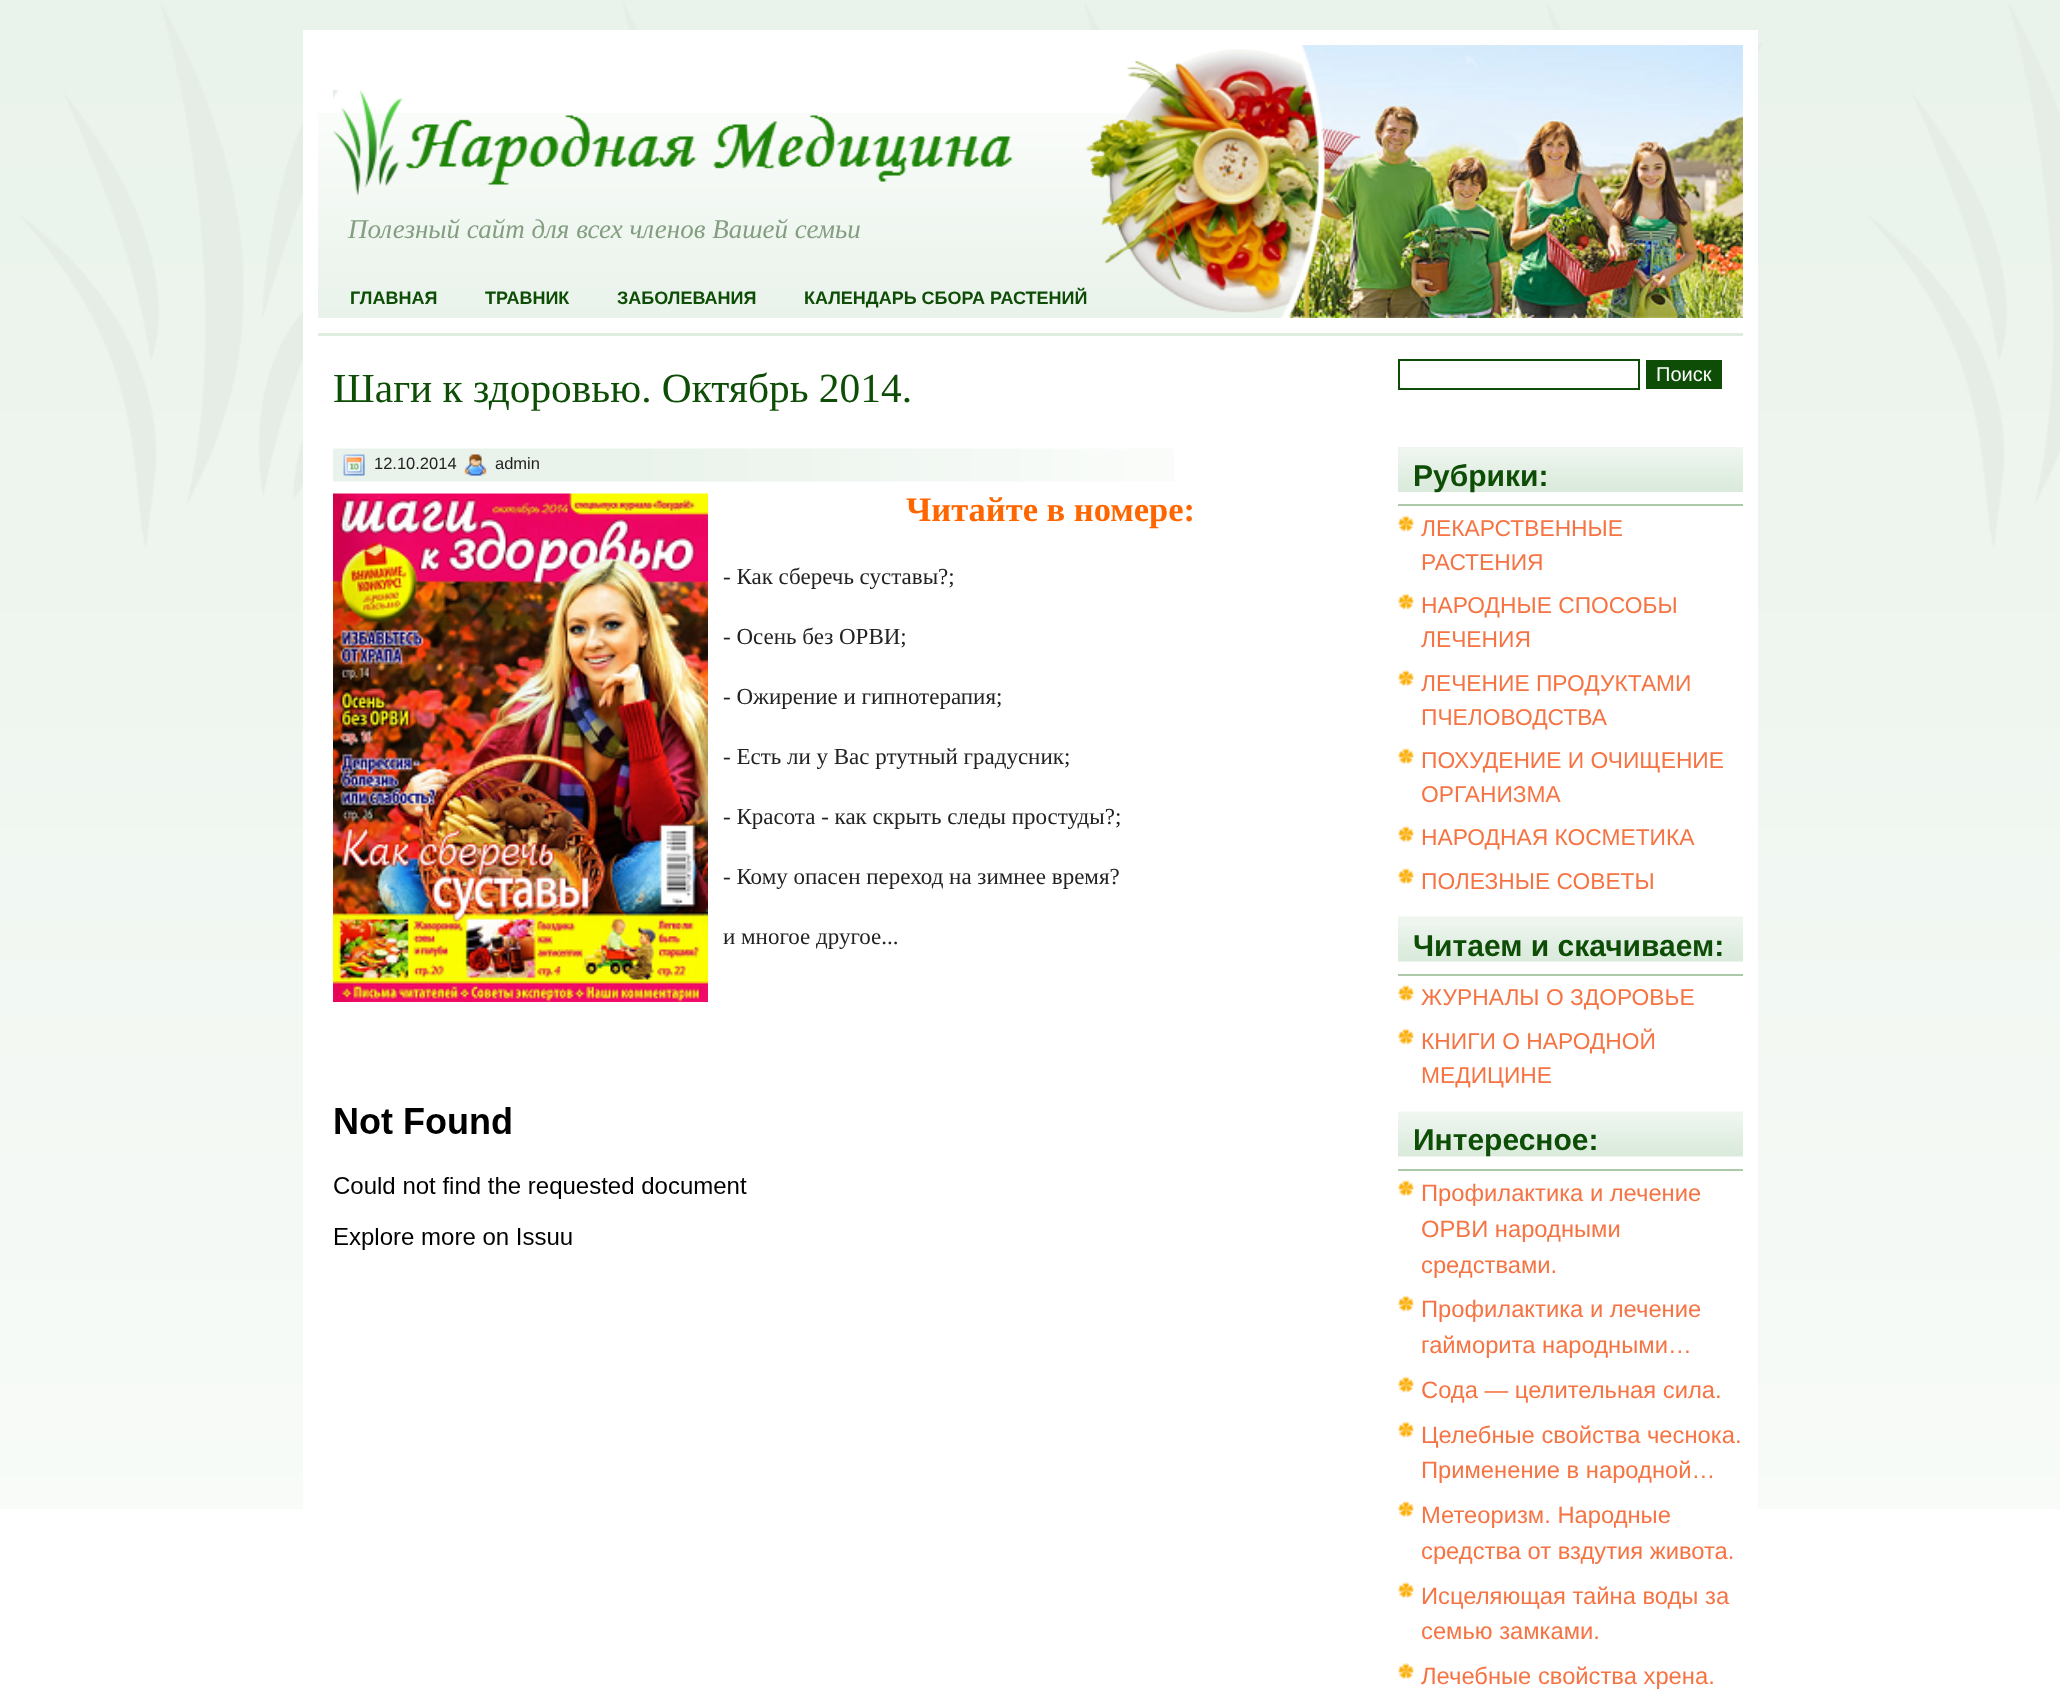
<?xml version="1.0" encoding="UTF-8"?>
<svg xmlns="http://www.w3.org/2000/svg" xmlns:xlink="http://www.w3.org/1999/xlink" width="2060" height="1703">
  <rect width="100%" height="100%" fill="#ffffff" />
  <image x="0" y="0" width="2060" height="1509" xlink:href="image1.png" />
  <rect x="303" y="30" width="1455" height="1479" fill="#ffffff" />
  <image x="318" y="113" width="973" height="205" xlink:href="image2.png" />
  <image x="1086" y="45" width="657" height="273" xlink:href="image3.png" />
  <image x="333" y="90" width="680" height="106" xlink:href="image4.png" />
  <rect x="318" y="333" width="1425" height="3" fill="#dfede0" />
  <image x="333" y="448" width="841" height="34" xlink:href="image5.png" />
  <image x="343" y="454" width="22" height="22" xlink:href="image6.png" />
  <image x="464" y="454" width="23" height="22" xlink:href="image7.png" />
  <image x="333" y="493" width="375" height="509" xlink:href="image8.png" />
  <image x="334" y="1107" width="413" height="143" xlink:href="image9.png" />
  <rect x="1399" y="360" width="240" height="29" fill="none" stroke="#0d4d06" stroke-width="2" />
  <rect x="1646" y="360" width="76" height="29" fill="#0d4d06" />
  <image x="1398" y="447" width="345" height="45" xlink:href="image10.png" />
  <rect x="1398" y="504" width="345" height="2" fill="#acc9a9" />
  <image x="1398" y="515" width="16" height="17" xlink:href="image11.png" />
  <image x="1398" y="593" width="16" height="17" xlink:href="image11.png" />
  <image x="1398" y="670" width="16" height="16" xlink:href="image12.png" />
  <image x="1398" y="748" width="16" height="16" xlink:href="image12.png" />
  <image x="1398" y="826" width="16" height="16" xlink:href="image12.png" />
  <image x="1398" y="868" width="16" height="16" xlink:href="image12.png" />
  <image x="1398" y="916" width="345" height="46" xlink:href="image13.png" />
  <rect x="1398" y="974" width="345" height="2" fill="#acc9a9" />
  <image x="1398" y="985" width="16" height="16" xlink:href="image12.png" />
  <image x="1398" y="1028" width="16" height="17" xlink:href="image11.png" />
  <image x="1398" y="1111" width="345" height="46" xlink:href="image13.png" />
  <rect x="1398" y="1169" width="345" height="2" fill="#acc9a9" />
  <image x="1398" y="1180" width="16" height="16" xlink:href="image12.png" />
  <image x="1398" y="1295" width="16" height="17" xlink:href="image11.png" />
  <image x="1398" y="1376" width="16" height="17" xlink:href="image11.png" />
  <image x="1398" y="1421" width="16" height="17" xlink:href="image11.png" />
  <image x="1398" y="1501" width="16" height="16" xlink:href="image12.png" />
  <image x="1398" y="1582" width="16" height="16" xlink:href="image12.png" />
  <image x="1398" y="1663" width="16" height="16" xlink:href="image12.png" />
  <text x="348" y="238" style="font-family: Liberation Serif; font-size: 27px; font-style: italic; fill: #849e81">Полезный сайт для всех членов Вашей семьи</text>
  <text x="350" y="304" style="font-family: Liberation Sans; font-size: 18px; font-weight: bold; fill: #0d4d06">ГЛАВНАЯ</text>
  <text x="485" y="304" style="font-family: Liberation Sans; font-size: 18px; font-weight: bold; fill: #0d4d06">ТРАВНИК</text>
  <text x="617" y="304" style="font-family: Liberation Sans; font-size: 18px; font-weight: bold; fill: #0d4d06">ЗАБОЛЕВАНИЯ</text>
  <text x="804" y="304" style="font-family: Liberation Sans; font-size: 18px; font-weight: bold; fill: #0d4d06">КАЛЕНДАРЬ СБОРА РАСТЕНИЙ</text>
  <text x="333" y="402" style="font-family: Liberation Serif; font-size: 41.4px; fill: #0d4d06">Шаги к здоровью. Октябрь 2014.</text>
  <text x="374" y="469" style="font-family: Liberation Sans; font-size: 16.5px; fill: #222222">12.10.2014</text>
  <text x="495" y="469" style="font-family: Liberation Sans; font-size: 16.5px; fill: #222222">admin</text>
  <text x="906" y="521" style="font-family: Liberation Serif; font-size: 34.5px; font-weight: bold; fill: #ff6600">Читайте в номере:</text>
  <text x="723" y="584" style="font-family: Liberation Serif; font-size: 23px; fill: #222222">- Как сберечь суставы?;</text>
  <text x="723" y="644" style="font-family: Liberation Serif; font-size: 23px; fill: #222222">- Осень без ОРВИ;</text>
  <text x="723" y="704" style="font-family: Liberation Serif; font-size: 23px; fill: #222222">- Ожирение и гипнотерапия;</text>
  <text x="723" y="764" style="font-family: Liberation Serif; font-size: 23px; fill: #222222">- Есть ли у Вас ртутный градусник;</text>
  <text x="723" y="824" style="font-family: Liberation Serif; font-size: 23px; fill: #222222">- Красота - как скрыть следы простуды?;</text>
  <text x="723" y="884" style="font-family: Liberation Serif; font-size: 23px; fill: #222222">- Кому опасен переход на зимнее время?</text>
  <text x="723" y="944" style="font-family: Liberation Serif; font-size: 23px; fill: #222222">и многое другое...</text>
  <text x="1656" y="381" style="font-family: Liberation Sans; font-size: 20px; fill: #ffffff">Поиск</text>
  <text x="1413" y="486" style="font-family: Liberation Sans; font-size: 30px; font-weight: bold; fill: #0d4d06">Рубрики:</text>
  <text x="1421" y="536" style="font-family: Liberation Sans; font-size: 22.8px; fill: #f67443">ЛЕКАРСТВЕННЫЕ</text>
  <text x="1421" y="570" style="font-family: Liberation Sans; font-size: 22.8px; fill: #f67443">РАСТЕНИЯ</text>
  <text x="1421" y="613" style="font-family: Liberation Sans; font-size: 22.8px; fill: #f67443">НАРОДНЫЕ СПОСОБЫ</text>
  <text x="1421" y="647" style="font-family: Liberation Sans; font-size: 22.8px; fill: #f67443">ЛЕЧЕНИЯ</text>
  <text x="1421" y="691" style="font-family: Liberation Sans; font-size: 22.8px; fill: #f67443">ЛЕЧЕНИЕ ПРОДУКТАМИ</text>
  <text x="1421" y="725" style="font-family: Liberation Sans; font-size: 22.8px; fill: #f67443">ПЧЕЛОВОДСТВА</text>
  <text x="1421" y="768" style="font-family: Liberation Sans; font-size: 22.8px; fill: #f67443">ПОХУДЕНИЕ И ОЧИЩЕНИЕ</text>
  <text x="1421" y="802" style="font-family: Liberation Sans; font-size: 22.8px; fill: #f67443">ОРГАНИЗМА</text>
  <text x="1421" y="845" style="font-family: Liberation Sans; font-size: 22.8px; fill: #f67443">НАРОДНАЯ КОСМЕТИКА</text>
  <text x="1421" y="889" style="font-family: Liberation Sans; font-size: 22.8px; fill: #f67443">ПОЛЕЗНЫЕ СОВЕТЫ</text>
  <text x="1413" y="956" style="font-family: Liberation Sans; font-size: 30px; font-weight: bold; fill: #0d4d06">Читаем и скачиваем:</text>
  <text x="1421" y="1005" style="font-family: Liberation Sans; font-size: 22.8px; fill: #f67443">ЖУРНАЛЫ О ЗДОРОВЬЕ</text>
  <text x="1421" y="1049" style="font-family: Liberation Sans; font-size: 22.8px; fill: #f67443">КНИГИ О НАРОДНОЙ</text>
  <text x="1421" y="1083" style="font-family: Liberation Sans; font-size: 22.8px; fill: #f67443">МЕДИЦИНЕ</text>
  <text x="1413" y="1150" style="font-family: Liberation Sans; font-size: 30px; font-weight: bold; fill: #0d4d06">Интересное:</text>
  <text x="1421" y="1201" style="font-family: Liberation Sans; font-size: 23.75px; fill: #f67443">Профилактика и лечение</text>
  <text x="1421" y="1237" style="font-family: Liberation Sans; font-size: 23.75px; fill: #f67443">ОРВИ народными</text>
  <text x="1421" y="1273" style="font-family: Liberation Sans; font-size: 23.75px; fill: #f67443">средствами.</text>
  <text x="1421" y="1317" style="font-family: Liberation Sans; font-size: 23.75px; fill: #f67443">Профилактика и лечение</text>
  <text x="1421" y="1353" style="font-family: Liberation Sans; font-size: 23.75px; fill: #f67443">гайморита народными…</text>
  <text x="1421" y="1398" style="font-family: Liberation Sans; font-size: 23.75px; fill: #f67443">Сода — целительная сила.</text>
  <text x="1421" y="1443" style="font-family: Liberation Sans; font-size: 23.75px; fill: #f67443">Целебные свойства чеснока.</text>
  <text x="1421" y="1478" style="font-family: Liberation Sans; font-size: 23.75px; fill: #f67443">Применение в народной…</text>
  <text x="1421" y="1523" style="font-family: Liberation Sans; font-size: 23.75px; fill: #f67443">Метеоризм. Народные</text>
  <text x="1421" y="1559" style="font-family: Liberation Sans; font-size: 23.75px; fill: #f67443">средства от вздутия живота.</text>
  <text x="1421" y="1604" style="font-family: Liberation Sans; font-size: 23.75px; fill: #f67443">Исцеляющая тайна воды за</text>
  <text x="1421" y="1639" style="font-family: Liberation Sans; font-size: 23.75px; fill: #f67443">семью замками.</text>
  <text x="1421" y="1684" style="font-family: Liberation Sans; font-size: 23.75px; fill: #f67443">Лечебные свойства хрена.</text>
</svg>
